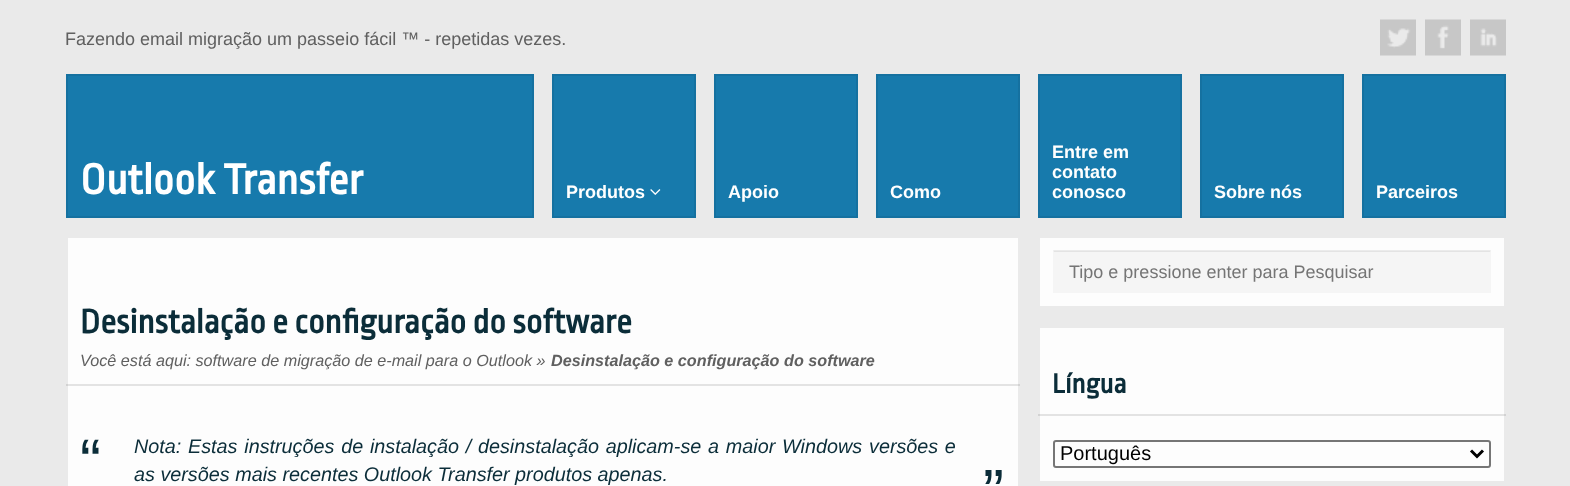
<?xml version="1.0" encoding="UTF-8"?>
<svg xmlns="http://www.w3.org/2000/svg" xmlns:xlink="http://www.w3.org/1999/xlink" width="1570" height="486">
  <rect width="100%" height="100%" fill="#eaeaea" />
  <image x="1380" y="19" width="36" height="37" xlink:href="image1.png" />
  <image x="1425" y="19" width="36" height="37" xlink:href="image2.png" />
  <image x="1470" y="19" width="36" height="37" xlink:href="image3.png" />
  <rect x="67" y="75" width="466" height="142" fill="#177aac" stroke="#1571a0" stroke-width="2" />
  <rect x="553" y="75" width="142" height="142" fill="#177aac" stroke="#1571a0" stroke-width="2" />
  <image x="650" y="189" width="11" height="6" xlink:href="image4.png" />
  <rect x="715" y="75" width="142" height="142" fill="#177aac" stroke="#1571a0" stroke-width="2" />
  <rect x="877" y="75" width="142" height="142" fill="#177aac" stroke="#1571a0" stroke-width="2" />
  <rect x="1039" y="75" width="142" height="142" fill="#177aac" stroke="#1571a0" stroke-width="2" />
  <rect x="1201" y="75" width="142" height="142" fill="#177aac" stroke="#1571a0" stroke-width="2" />
  <rect x="1363" y="75" width="142" height="142" fill="#177aac" stroke="#1571a0" stroke-width="2" />
  <rect x="68" y="238" width="950" height="248" fill="#fdfdfd" />
  <rect x="66" y="384" width="954" height="2" fill="#000000" fill-opacity="0.1" />
  <rect x="1040" y="238" width="464" height="68" fill="#fdfdfd" />
  <rect x="1053" y="251" width="438" height="42" fill="#f5f5f5" />
  <path d="M 1053 250 h 438 l -1 2 h -436 z" fill="#000000" fill-opacity="0.07" />
  <rect x="1040" y="328" width="464" height="153" fill="#fdfdfd" />
  <rect x="1038" y="414" width="468" height="2" fill="#000000" fill-opacity="0.1" />
  <rect x="1054" y="441" width="436" height="26" rx="2" fill="none" stroke="#767676" stroke-width="2" />
  <path d="M 1471 450.5 l 6 6 l 6 -6" fill="none" stroke="#000000" stroke-width="3" />
  <text x="65" y="45" style="font-family: Liberation Sans; font-size: 18px; fill: #606060">Fazendo email migração um passeio fácil ™ - repetidas vezes.</text>
  <text x="80" y="194" style="font-family: Ropa Sans; font-size: 45px; font-weight: bold; fill: #ffffff">Outlook Transfer</text>
  <text x="566" y="198" style="font-family: Liberation Sans; font-size: 18px; font-weight: bold; fill: #ffffff">Produtos</text>
  <text x="728" y="198" style="font-family: Liberation Sans; font-size: 18px; font-weight: bold; fill: #ffffff">Apoio</text>
  <text x="890" y="198" style="font-family: Liberation Sans; font-size: 18px; font-weight: bold; fill: #ffffff">Como</text>
  <text x="1052" y="158" style="font-family: Liberation Sans; font-size: 18px; font-weight: bold; fill: #ffffff">Entre em</text>
  <text x="1052" y="178" style="font-family: Liberation Sans; font-size: 18px; font-weight: bold; fill: #ffffff">contato</text>
  <text x="1052" y="198" style="font-family: Liberation Sans; font-size: 18px; font-weight: bold; fill: #ffffff">conosco</text>
  <text x="1214" y="198" style="font-family: Liberation Sans; font-size: 18px; font-weight: bold; fill: #ffffff">Sobre nós</text>
  <text x="1376" y="198" style="font-family: Liberation Sans; font-size: 18px; font-weight: bold; fill: #ffffff">Parceiros</text>
  <text x="80" y="333" style="font-family: Ropa Sans; font-size: 35.25px; font-weight: bold; fill: #0b2d39">Desinstalação e configuração do software</text>
  <text x="80" y="366" style="font-family: Liberation Sans; font-size: 16.2px; font-style: italic; fill: #606060">Você está aqui: software de migração de e-mail para o Outlook »</text>
  <text x="551" y="366" style="font-family: Liberation Sans; font-size: 16.2px; font-weight: bold; font-style: italic; fill: #606060">Desinstalação e configuração do software</text>
  <text x="80" y="483" style="font-family: Liberation Sans; font-size: 63px; fill: #0b2d39">“</text>
  <text x="134" y="453" word-spacing="1.25" style="font-family: Liberation Sans; font-size: 19.8px; font-style: italic; fill: #0b2d39">Nota: Estas instruções de instalação / desinstalação aplicam-se a maior</text>
  <text x="782" y="453" style="font-family: Liberation Sans; font-size: 19.8px; font-style: italic; fill: #0b2d39">Windows</text>
  <text x="869" y="453" word-spacing="1" style="font-family: Liberation Sans; font-size: 19.8px; font-style: italic; fill: #0b2d39">versões e</text>
  <text x="134" y="481" style="font-family: Liberation Sans; font-size: 19.8px; font-style: italic; fill: #0b2d39">as versões mais recentes Outlook Transfer produtos apenas.</text>
  <text x="983" y="476" style="font-family: Liberation Sans; font-size: 63px; fill: #0b2d39">„</text>
  <text x="1069" y="278" style="font-family: Liberation Sans; font-size: 18px; fill: #757575">Tipo e pressione enter para Pesquisar</text>
  <text x="1052" y="393" style="font-family: Ropa Sans; font-size: 29px; font-weight: bold; fill: #0b2d39">Língua</text>
  <text x="1060" y="460" style="font-family: Liberation Sans; font-size: 20px; fill: #000000">Português</text>
</svg>
